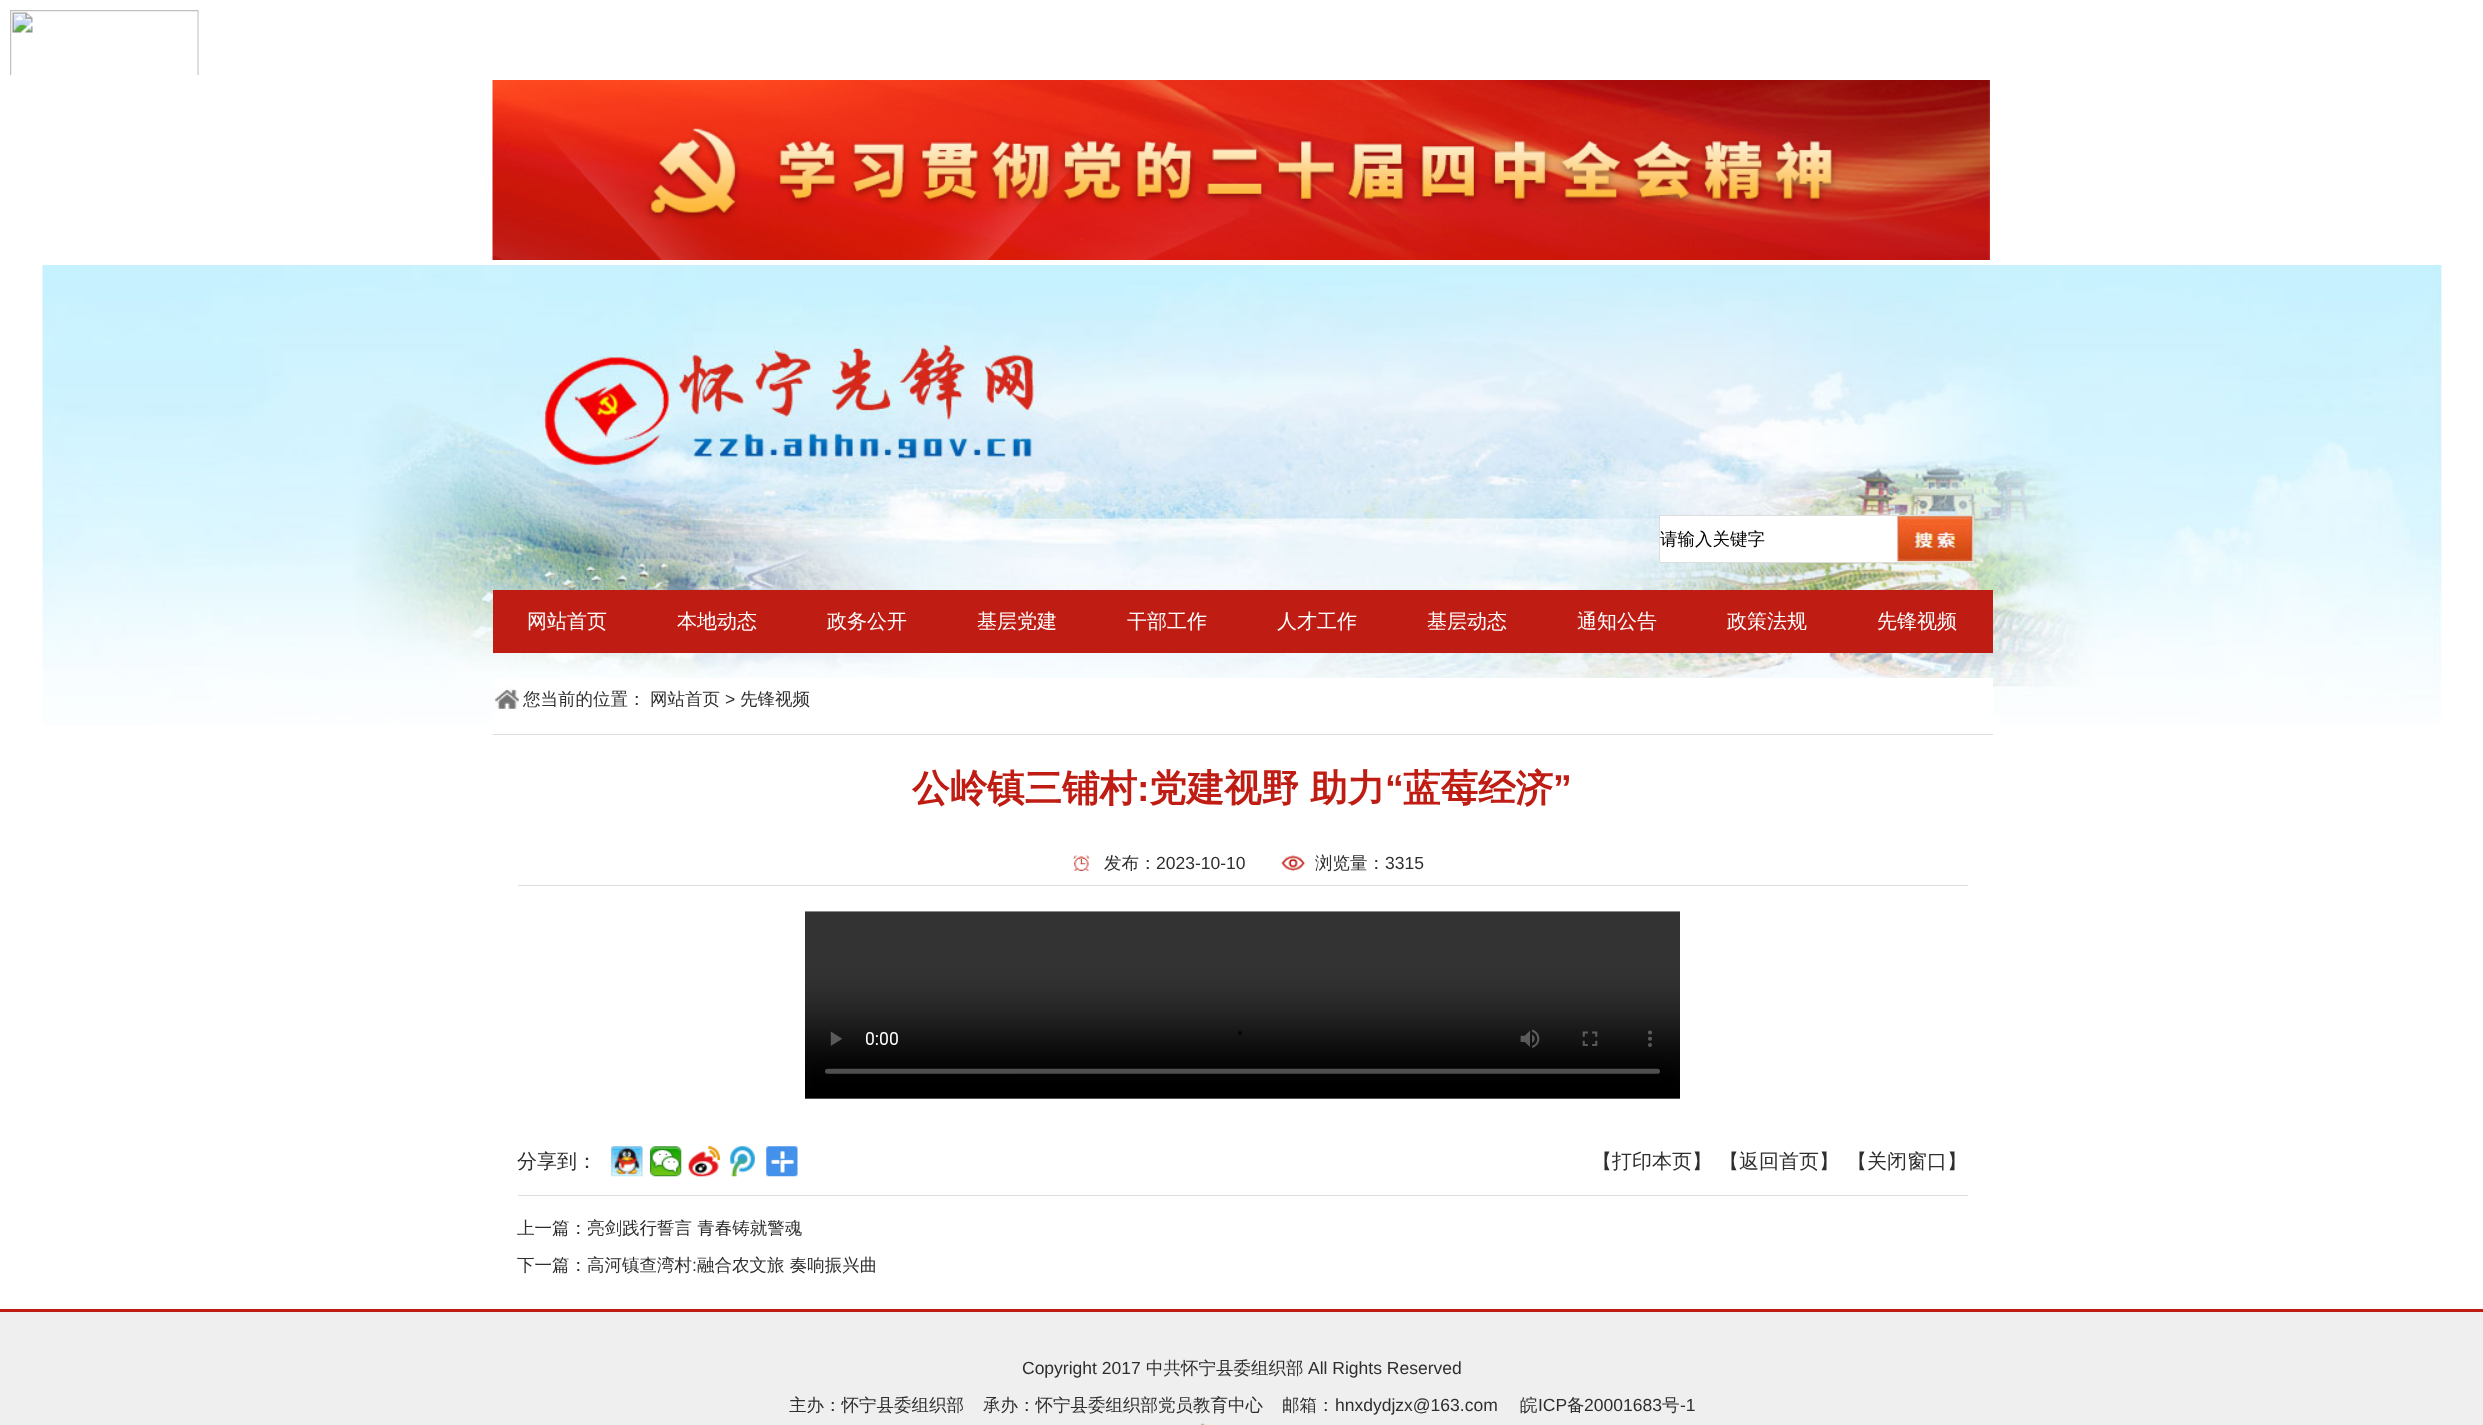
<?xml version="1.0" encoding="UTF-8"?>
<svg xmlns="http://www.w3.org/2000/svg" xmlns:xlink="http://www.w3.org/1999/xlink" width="2483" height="1425">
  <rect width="100%" height="100%" fill="#ffffff" />
  <image x="10" y="10" width="189" height="65" xlink:href="image1.png" />
  <image x="492" y="80" width="1498" height="180" xlink:href="image2.png" />
  <image x="42" y="265" width="2400" height="460" xlink:href="image3.png" />
  <rect x="1659.5" y="515.5" width="314" height="47" fill="#ffffff" stroke="#dddddd" />
  <image x="1897" y="516" width="76" height="46" xlink:href="image4.png" />
  <rect x="493" y="590" width="1500" height="63" fill="#bf1d14" />
  <rect x="493" y="678" width="1500" height="47" fill="#ffffff" />
  <image x="492" y="687" width="27" height="24" xlink:href="image5.png" />
  <rect x="493" y="734" width="1500" height="1" fill="#dddddd" />
  <rect x="518" y="885" width="1450" height="1" fill="#dddddd" />
  <image x="1073" y="855" width="17" height="16" xlink:href="image6.png" />
  <image x="1281" y="855" width="25" height="16" xlink:href="image7.png" />
  <image x="805" y="911" width="875" height="188" xlink:href="image8.png" />
  <rect x="518" y="1195" width="1450" height="1" fill="#dddddd" />
  <image x="611" y="1146" width="32" height="31" xlink:href="image9.png" />
  <image x="650" y="1146" width="32" height="31" xlink:href="image10.png" />
  <image x="688" y="1146" width="32" height="31" xlink:href="image11.png" />
  <image x="730" y="1146" width="25" height="31" xlink:href="image12.png" />
  <image x="766" y="1146" width="32" height="31" xlink:href="image13.png" />
  <rect y="1312" width="2483" height="113" fill="#efefef" />
  <rect y="1309" width="2483" height="3" fill="#bf1d14" />
  <image x="1198" y="1423" width="9" height="2" xlink:href="image14.png" />
  <text x="1660" y="545" style="font-family: WenQuanYi Zen Hei; font-size: 17.5px; font-weight: 500; fill: #000000">请输入关键字</text>
  <text x="527" y="628" style="font-family: WenQuanYi Zen Hei; font-size: 20px; font-weight: 500; fill: #ffffff">网站首页</text>
  <text x="677" y="628" style="font-family: WenQuanYi Zen Hei; font-size: 20px; font-weight: 500; fill: #ffffff">本地动态</text>
  <text x="827" y="628" style="font-family: WenQuanYi Zen Hei; font-size: 20px; font-weight: 500; fill: #ffffff">政务公开</text>
  <text x="977" y="628" style="font-family: WenQuanYi Zen Hei; font-size: 20px; font-weight: 500; fill: #ffffff">基层党建</text>
  <text x="1127" y="628" style="font-family: WenQuanYi Zen Hei; font-size: 20px; font-weight: 500; fill: #ffffff">干部工作</text>
  <text x="1277" y="628" style="font-family: WenQuanYi Zen Hei; font-size: 20px; font-weight: 500; fill: #ffffff">人才工作</text>
  <text x="1427" y="628" style="font-family: WenQuanYi Zen Hei; font-size: 20px; font-weight: 500; fill: #ffffff">基层动态</text>
  <text x="1577" y="628" style="font-family: WenQuanYi Zen Hei; font-size: 20px; font-weight: 500; fill: #ffffff">通知公告</text>
  <text x="1727" y="628" style="font-family: WenQuanYi Zen Hei; font-size: 20px; font-weight: 500; fill: #ffffff">政策法规</text>
  <text x="1877" y="628" style="font-family: WenQuanYi Zen Hei; font-size: 20px; font-weight: 500; fill: #ffffff">先锋视频</text>
  <text x="523" y="705" style="font-family: WenQuanYi Zen Hei; font-size: 17.5px; font-weight: 500; fill: #2e2e2e">您当前的位置：</text>
  <text x="650" y="705" style="font-family: WenQuanYi Zen Hei; font-size: 17.5px; font-weight: 500; fill: #2e2e2e">网站首页</text>
  <text x="725" y="705" style="font-family: Liberation Sans; font-size: 17.5px; fill: #2e2e2e">&gt;</text>
  <text x="740" y="705" style="font-family: WenQuanYi Zen Hei; font-size: 17.5px; font-weight: 500; fill: #2e2e2e">先锋视频</text>
  <text x="912" y="801" style="font-family: WenQuanYi Zen Hei; font-size: 37.5px; font-weight: bold; fill: #bf1d14">公岭镇三铺村</text>
  <text x="1149" y="801" style="font-family: WenQuanYi Zen Hei; font-size: 37.5px; font-weight: bold; fill: #bf1d14">党建视野</text>
  <text x="1310" y="801" style="font-family: WenQuanYi Zen Hei; font-size: 37.5px; font-weight: bold; fill: #bf1d14">助力</text>
  <text x="1385" y="801" style="font-family: Liberation Sans; font-size: 37.5px; font-weight: bold; fill: #bf1d14">“</text>
  <text x="1403" y="801" style="font-family: WenQuanYi Zen Hei; font-size: 37.5px; font-weight: bold; fill: #bf1d14">蓝莓经济</text>
  <text x="1553" y="801" style="font-family: Liberation Sans; font-size: 37.5px; font-weight: bold; fill: #bf1d14">”</text>
  <text x="1137" y="801" style="font-family: Liberation Sans; font-size: 37.5px; font-weight: bold; fill: #bf1d14">:</text>
  <text x="1104" y="869" style="font-family: WenQuanYi Zen Hei; font-size: 17.5px; font-weight: 500; fill: #2e2e2e">发布：</text>
  <text x="1156" y="869" style="font-family: Liberation Sans; font-size: 17.5px; fill: #2e2e2e">2023-10-10</text>
  <text x="1315" y="869" style="font-family: WenQuanYi Zen Hei; font-size: 17.5px; font-weight: 500; fill: #2e2e2e">浏览量：</text>
  <text x="1385" y="869" style="font-family: Liberation Sans; font-size: 17.5px; fill: #2e2e2e">3315</text>
  <text x="517" y="1168" style="font-family: WenQuanYi Zen Hei; font-size: 20px; font-weight: 500; fill: #2e2e2e">分享到：</text>
  <text x="1592" y="1168" style="font-family: WenQuanYi Zen Hei; font-size: 20px; font-weight: 500; fill: #2e2e2e">【打印本页】</text>
  <text x="1719" y="1168" style="font-family: WenQuanYi Zen Hei; font-size: 20px; font-weight: 500; fill: #2e2e2e">【返回首页】</text>
  <text x="1847" y="1168" style="font-family: WenQuanYi Zen Hei; font-size: 20px; font-weight: 500; fill: #2e2e2e">【关闭窗口】</text>
  <text x="517" y="1234" style="font-family: WenQuanYi Zen Hei; font-size: 17.5px; font-weight: 500; fill: #2e2e2e">上一篇：</text>
  <text x="587" y="1234" style="font-family: WenQuanYi Zen Hei; font-size: 17.5px; font-weight: 500; fill: #2e2e2e">亮剑践行誓言 青春铸就警魂</text>
  <text x="517" y="1271" style="font-family: WenQuanYi Zen Hei; font-size: 17.5px; font-weight: 500; fill: #2e2e2e">下一篇：高河镇查湾村</text>
  <text x="692" y="1271" style="font-family: Liberation Sans; font-size: 17.5px; fill: #2e2e2e">:</text>
  <text x="697" y="1271" style="font-family: WenQuanYi Zen Hei; font-size: 17.5px; font-weight: 500; fill: #2e2e2e">融合农文旅 奏响振兴曲</text>
  <text x="1022" y="1374" style="font-family: Liberation Sans; font-size: 17.5px; fill: #2e2e2e">Copyright 2017</text>
  <text x="1146" y="1374" style="font-family: WenQuanYi Zen Hei; font-size: 17.5px; font-weight: 500; fill: #2e2e2e">中共怀宁县委组织部</text>
  <text x="1308" y="1374" style="font-family: Liberation Sans; font-size: 17.5px; fill: #2e2e2e">All Rights Reserved</text>
  <text x="789" y="1411" style="font-family: WenQuanYi Zen Hei; font-size: 17.5px; font-weight: 500; fill: #2e2e2e">主办：怀宁县委组织部</text>
  <text x="983" y="1411" style="font-family: WenQuanYi Zen Hei; font-size: 17.5px; font-weight: 500; fill: #2e2e2e">承办：怀宁县委组织部党员教育中心</text>
  <text x="1282" y="1411" style="font-family: WenQuanYi Zen Hei; font-size: 17.5px; font-weight: 500; fill: #2e2e2e">邮箱：</text>
  <text x="1335" y="1411" style="font-family: Liberation Sans; font-size: 17.5px; fill: #2e2e2e">hnxdydjzx@163.com</text>
  <text x="1520" y="1411" style="font-family: WenQuanYi Zen Hei; font-size: 17.5px; font-weight: 500; fill: #2e2e2e">皖</text>
  <text x="1538" y="1411" style="font-family: Liberation Sans; font-size: 17.5px; fill: #2e2e2e">ICP</text>
  <text x="1567" y="1411" style="font-family: WenQuanYi Zen Hei; font-size: 17.5px; font-weight: 500; fill: #2e2e2e">备</text>
  <text x="1584" y="1411" style="font-family: Liberation Sans; font-size: 17.5px; fill: #2e2e2e">20001683</text>
  <text x="1662" y="1411" style="font-family: WenQuanYi Zen Hei; font-size: 17.5px; font-weight: 500; fill: #2e2e2e">号</text>
  <text x="1680" y="1411" style="font-family: Liberation Sans; font-size: 17.5px; fill: #2e2e2e">-1</text>
</svg>
